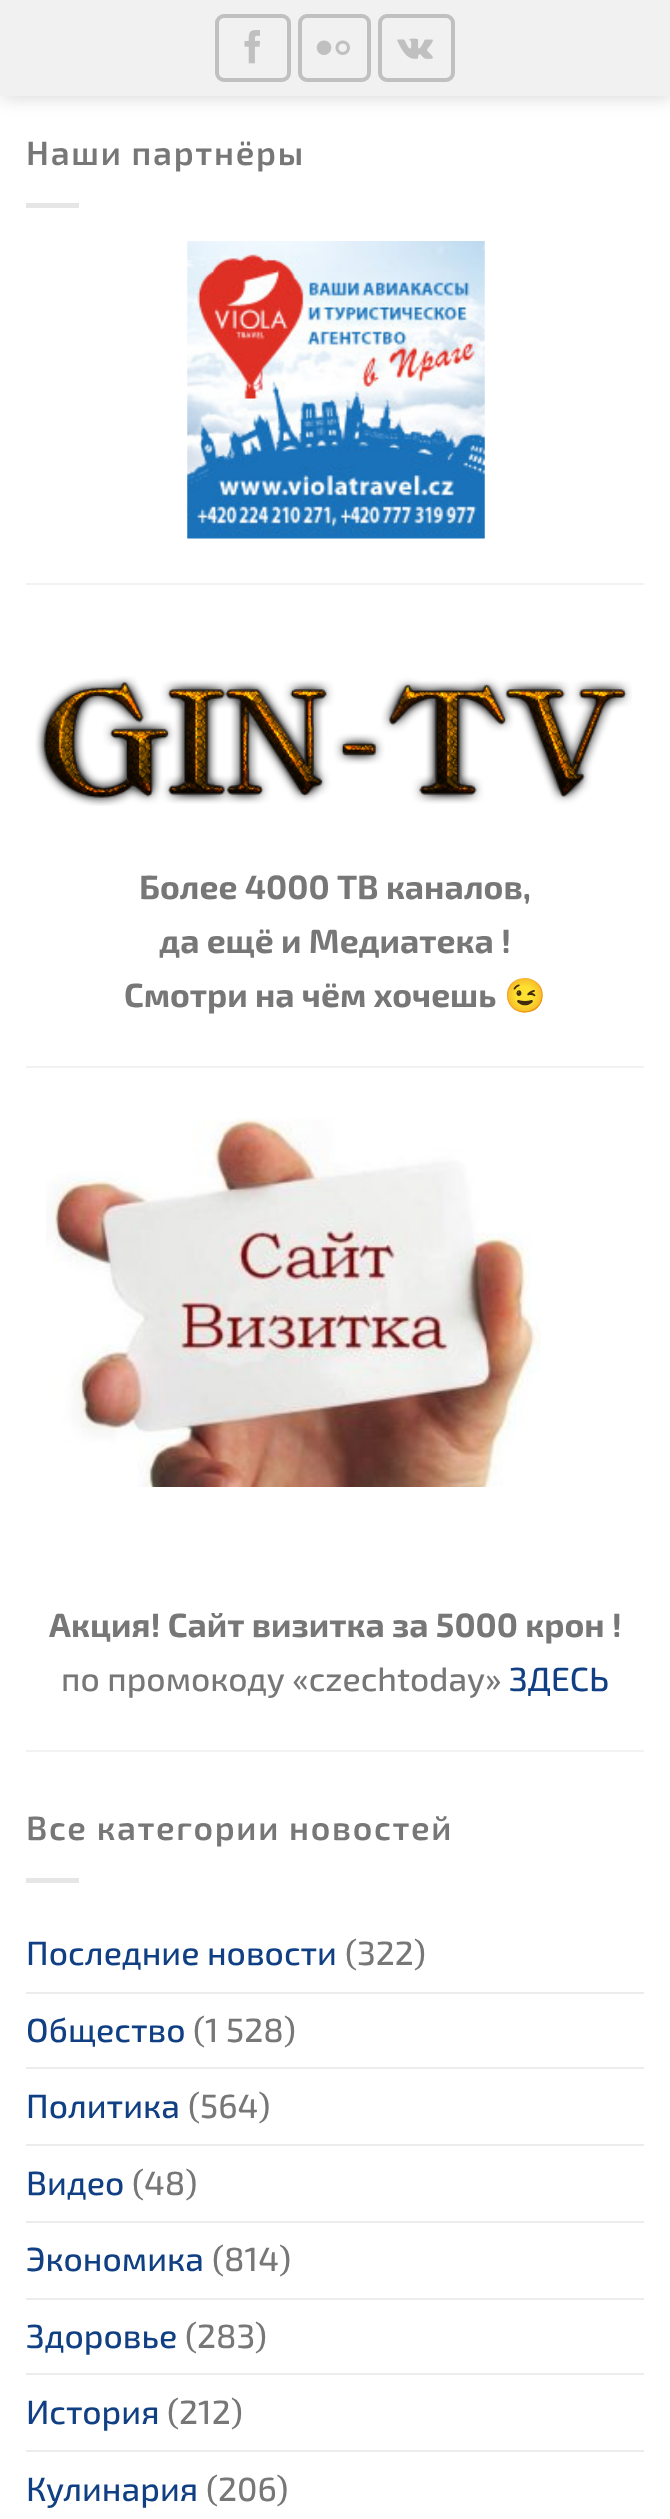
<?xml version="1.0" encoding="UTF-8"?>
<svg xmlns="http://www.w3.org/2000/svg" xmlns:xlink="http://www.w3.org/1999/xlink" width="670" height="2519">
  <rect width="100%" height="100%" fill="#ffffff" />
  <rect x="2" y="2" width="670" height="96" fill="#000000" fill-opacity="0.15" filter="blur(9px)" />
  <rect width="670" height="96" fill="#f1f1f1" />
  <rect x="217" y="16" width="72" height="64" rx="7" fill="none" stroke="#c0c0c0" stroke-width="4" />
  <image x="244" y="30" width="16" height="34" xlink:href="image1.png" />
  <rect x="300" y="16" width="69" height="64" rx="7" fill="none" stroke="#c0c0c0" stroke-width="4" />
  <image x="316" y="40" width="34" height="15" xlink:href="image2.png" />
  <rect x="380" y="16" width="73" height="64" rx="7" fill="none" stroke="#c0c0c0" stroke-width="4" />
  <image x="397" y="38" width="36" height="21" xlink:href="image3.png" />
  <rect x="26" y="203" width="53" height="5" fill="#e6e6e6" />
  <image x="187" y="241" width="298" height="298" xlink:href="image4.png" />
  <rect x="26" y="583" width="618" height="2" fill="#f2f2f2" />
  <image x="35" y="676" width="597" height="130" xlink:href="image5.png" />
  <rect x="26" y="1066" width="618" height="2" fill="#f2f2f2" />
  <image x="46" y="1118" width="495" height="369" xlink:href="image6.png" />
  <rect x="26" y="1750" width="618" height="2" fill="#f2f2f2" />
  <rect x="26" y="1878" width="53" height="5" fill="#e6e6e6" />
  <rect x="26" y="1992" width="618" height="2" fill="#ececec" />
  <rect x="26" y="2067" width="618" height="2" fill="#ececec" />
  <rect x="26" y="2144" width="618" height="2" fill="#ececec" />
  <rect x="26" y="2221" width="618" height="2" fill="#ececec" />
  <rect x="26" y="2298" width="618" height="2" fill="#ececec" />
  <rect x="26" y="2373" width="618" height="2" fill="#ececec" />
  <rect x="26" y="2450" width="618" height="2" fill="#ececec" />
  <text x="26" y="165" style="font-family: 'Exo 2'; font-size: 33.6px; font-weight: 600; letter-spacing: 1.7px; fill: #777777">Наши партнёры</text>
  <text x="139" y="899" style="font-family: 'Exo 2'; font-size: 33.6px; font-weight: bold; fill: #777777">Более 4000 ТВ каналов,</text>
  <text x="159" y="953" style="font-family: 'Exo 2'; font-size: 33.6px; font-weight: bold; fill: #777777">да ещё и Медиатека !</text>
  <text x="124" y="1007" style="font-family: 'Exo 2'; font-size: 33.6px; font-weight: bold; fill: #777777">Смотри на чём хочешь</text>
  <text x="504" y="1007" style="font-family: Noto Color Emoji; font-size: 33.6px; font-weight: bold; fill: #777777">😉</text>
  <text x="49" y="1637" style="font-family: 'Exo 2'; font-size: 33.6px; font-weight: bold; fill: #777777">Акция! Сайт визитка за 5000 крон !</text>
  <text x="61" y="1691" style="font-family: 'Exo 2'; font-size: 33.6px; font-weight: 500; fill: #777777">по промокоду «czechtoday»</text>
  <text x="509" y="1691" style="font-family: 'Exo 2'; font-size: 33.6px; font-weight: 500; fill: #104083">ЗДЕСЬ</text>
  <text x="26" y="1840" style="font-family: 'Exo 2'; font-size: 33.6px; font-weight: 600; letter-spacing: 1.7px; fill: #777777">Все категории новостей</text>
  <text x="26" y="1965" style="font-family: 'Exo 2'; font-size: 33.6px; font-weight: 500; fill: #104083">Последние новости</text>
  <text x="345" y="1965" style="font-family: 'Exo 2'; font-size: 33.6px; font-weight: 500; fill: #777777">(322)</text>
  <text x="26" y="2042" style="font-family: 'Exo 2'; font-size: 33.6px; font-weight: 500; fill: #104083">Общество</text>
  <text x="193" y="2042" style="font-family: 'Exo 2'; font-size: 33.6px; font-weight: 500; fill: #777777">(1 528)</text>
  <text x="26" y="2118" style="font-family: 'Exo 2'; font-size: 33.6px; font-weight: 500; fill: #104083">Политика</text>
  <text x="188" y="2118" style="font-family: 'Exo 2'; font-size: 33.6px; font-weight: 500; fill: #777777">(564)</text>
  <text x="26" y="2195" style="font-family: 'Exo 2'; font-size: 33.6px; font-weight: 500; fill: #104083">Видео</text>
  <text x="132" y="2195" style="font-family: 'Exo 2'; font-size: 33.6px; font-weight: 500; fill: #777777">(48)</text>
  <text x="26" y="2271" style="font-family: 'Exo 2'; font-size: 33.6px; font-weight: 500; fill: #104083">Экономика</text>
  <text x="212" y="2271" style="font-family: 'Exo 2'; font-size: 33.6px; font-weight: 500; fill: #777777">(814)</text>
  <text x="26" y="2348" style="font-family: 'Exo 2'; font-size: 33.6px; font-weight: 500; fill: #104083">Здоровье</text>
  <text x="185" y="2348" style="font-family: 'Exo 2'; font-size: 33.6px; font-weight: 500; fill: #777777">(283)</text>
  <text x="26" y="2424" style="font-family: 'Exo 2'; font-size: 33.6px; font-weight: 500; fill: #104083">История</text>
  <text x="167" y="2424" style="font-family: 'Exo 2'; font-size: 33.6px; font-weight: 500; fill: #777777">(212)</text>
  <text x="26" y="2501" style="font-family: 'Exo 2'; font-size: 33.6px; font-weight: 500; fill: #104083">Кулинария</text>
  <text x="206" y="2501" style="font-family: 'Exo 2'; font-size: 33.6px; font-weight: 500; fill: #777777">(206)</text>
</svg>
